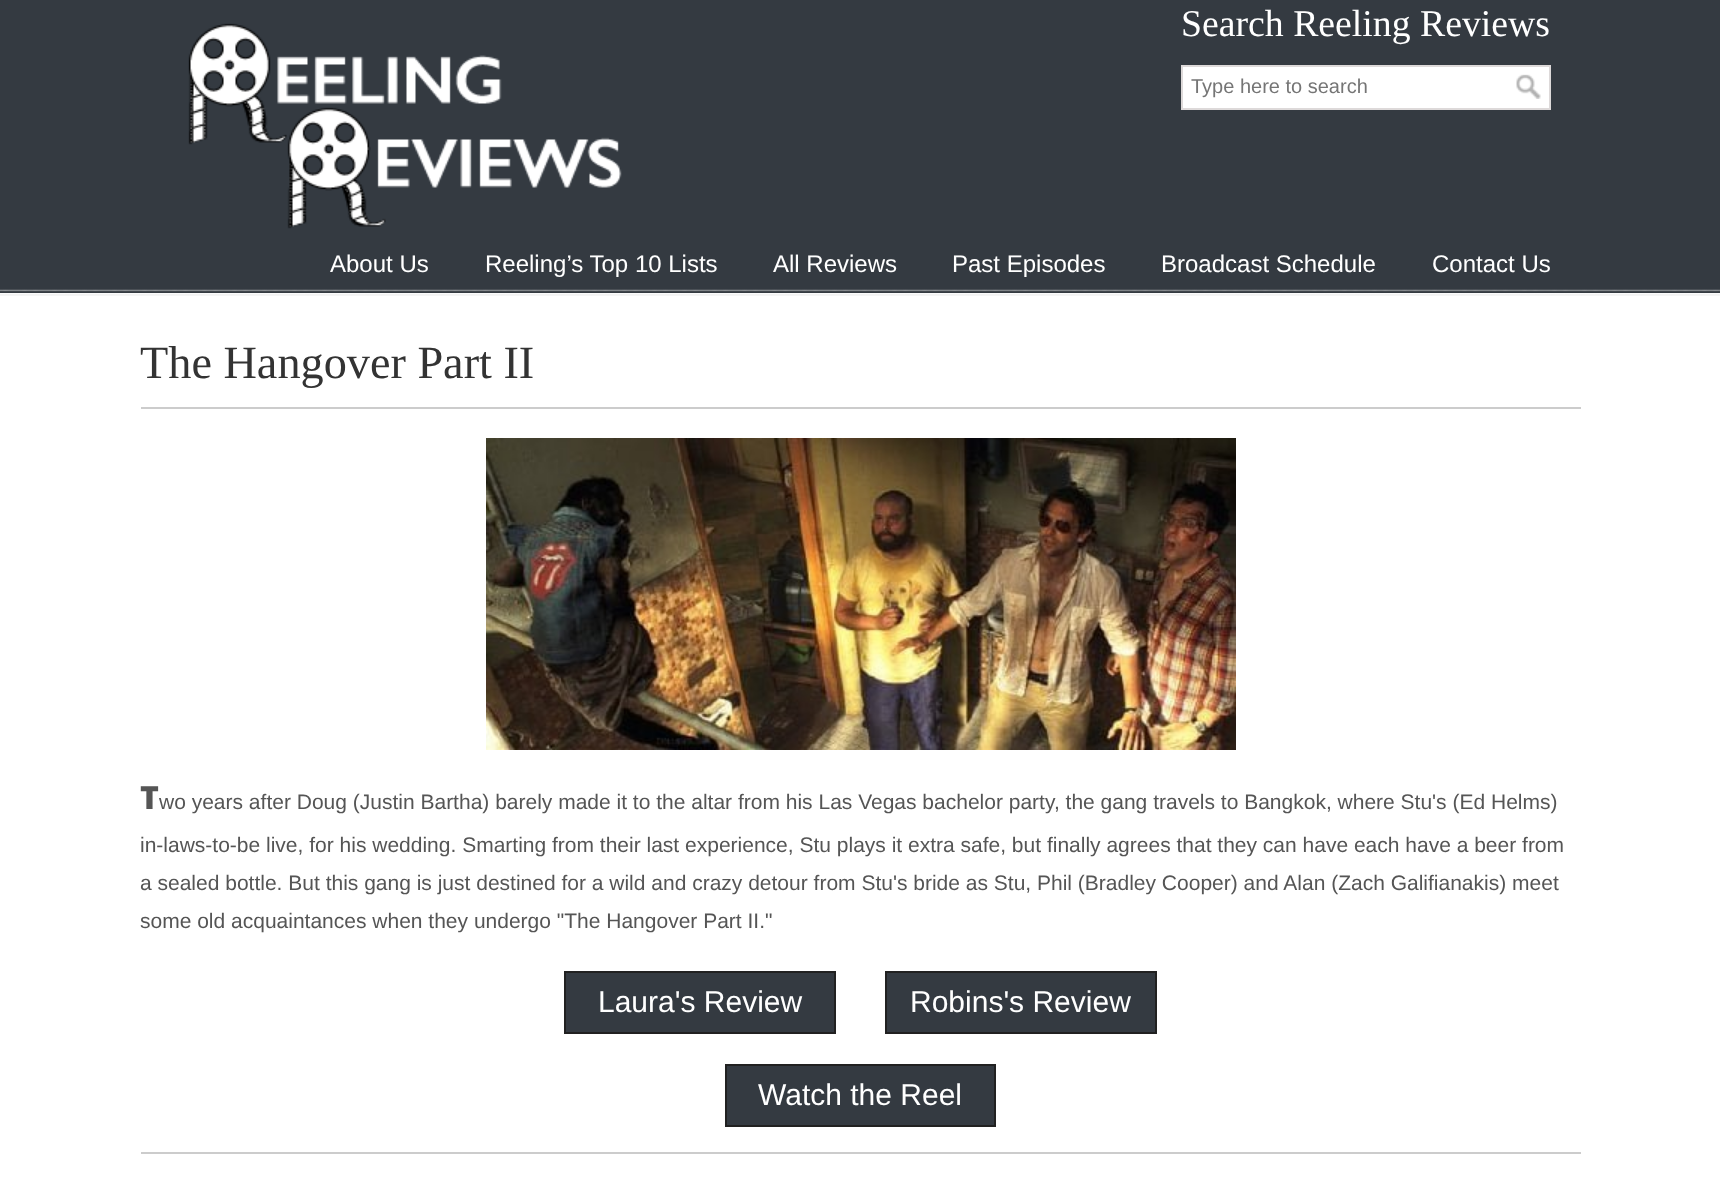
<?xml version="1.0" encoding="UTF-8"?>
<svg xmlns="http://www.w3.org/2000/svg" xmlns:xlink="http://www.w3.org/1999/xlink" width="1720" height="1202">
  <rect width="100%" height="100%" fill="#ffffff" />
  <rect width="1720" height="293" fill="#343a41" />
  <image x="188" y="23" width="434" height="206" xlink:href="image1.png" />
  <rect x="1182" y="66" width="368" height="43" fill="#ffffff" stroke="#ddd9d9" stroke-width="2" />
  <image x="1516" y="74" width="25" height="25" xlink:href="image2.png" />
  <image x="0" y="289" width="1720" height="3" xlink:href="image3.png" />
  <image x="0" y="293" width="1720" height="3" xlink:href="image4.png" />
  <rect x="141" y="407" width="1440" height="2" fill="#cccccc" />
  <image x="486" y="438" width="750" height="312" xlink:href="image5.png" />
  <rect x="565" y="972" width="270" height="61" fill="#343a41" stroke="#212121" stroke-width="2" />
  <rect x="886" y="972" width="270" height="61" fill="#343a41" stroke="#212121" stroke-width="2" />
  <rect x="726" y="1065" width="269" height="61" fill="#343a41" stroke="#212121" stroke-width="2" />
  <rect x="141" y="1152" width="1440" height="2" fill="#cccccc" />
  <text x="1181" y="36" style="font-family: Liberation Serif; font-size: 37.75px; fill: #ffffff">Search Reeling Reviews</text>
  <text x="1191" y="93" style="font-family: Liberation Sans; font-size: 20px; fill: #757575">Type here to search</text>
  <text x="330" y="272" style="font-family: Liberation Sans; font-size: 24px; fill: #ffffff">About Us</text>
  <text x="485" y="272" style="font-family: Liberation Sans; font-size: 24px; fill: #ffffff">Reeling’s Top 10 Lists</text>
  <text x="773" y="272" style="font-family: Liberation Sans; font-size: 24px; fill: #ffffff">All Reviews</text>
  <text x="952" y="272" style="font-family: Liberation Sans; font-size: 24px; fill: #ffffff">Past Episodes</text>
  <text x="1161" y="272" style="font-family: Liberation Sans; font-size: 24px; fill: #ffffff">Broadcast Schedule</text>
  <text x="1432" y="272" style="font-family: Liberation Sans; font-size: 24px; fill: #ffffff">Contact Us</text>
  <text x="140" y="378" style="font-family: Liberation Serif; font-size: 46.25px; fill: #333333">The Hangover Part II</text>
  <text x="140" y="809" style="font-family: Noto Sans; font-size: 32px; font-weight: 900; fill: #555555">T</text>
  <text x="159" y="809" style="font-family: Liberation Sans; font-size: 21px; fill: #555555">wo years after Doug (Justin Bartha) barely made it to the altar from his Las Vegas bachelor party, the gang travels to Bangkok, where Stu's (Ed Helms)</text>
  <text x="140" y="852" style="font-family: Liberation Sans; font-size: 21px; fill: #555555">in-laws-to-be live, for his wedding. Smarting from their last experience, Stu plays it extra safe, but finally agrees that they can have each have a beer from</text>
  <text x="140" y="890" style="font-family: Liberation Sans; font-size: 21px; fill: #555555">a sealed bottle. But this gang is just destined for a wild and crazy detour from Stu's bride as Stu, Phil (Bradley Cooper) and Alan (Zach Galifianakis) meet</text>
  <text x="140" y="928" style="font-family: Liberation Sans; font-size: 21px; fill: #555555">some old acquaintances when they undergo "The Hangover Part II."</text>
  <text x="598" y="1012" style="font-family: Liberation Sans; font-size: 30px; fill: #ffffff">Laura's Review</text>
  <text x="910" y="1012" style="font-family: Liberation Sans; font-size: 30px; fill: #ffffff">Robins's Review</text>
  <text x="758" y="1105" style="font-family: Liberation Sans; font-size: 30px; fill: #ffffff">Watch the Reel</text>
</svg>
